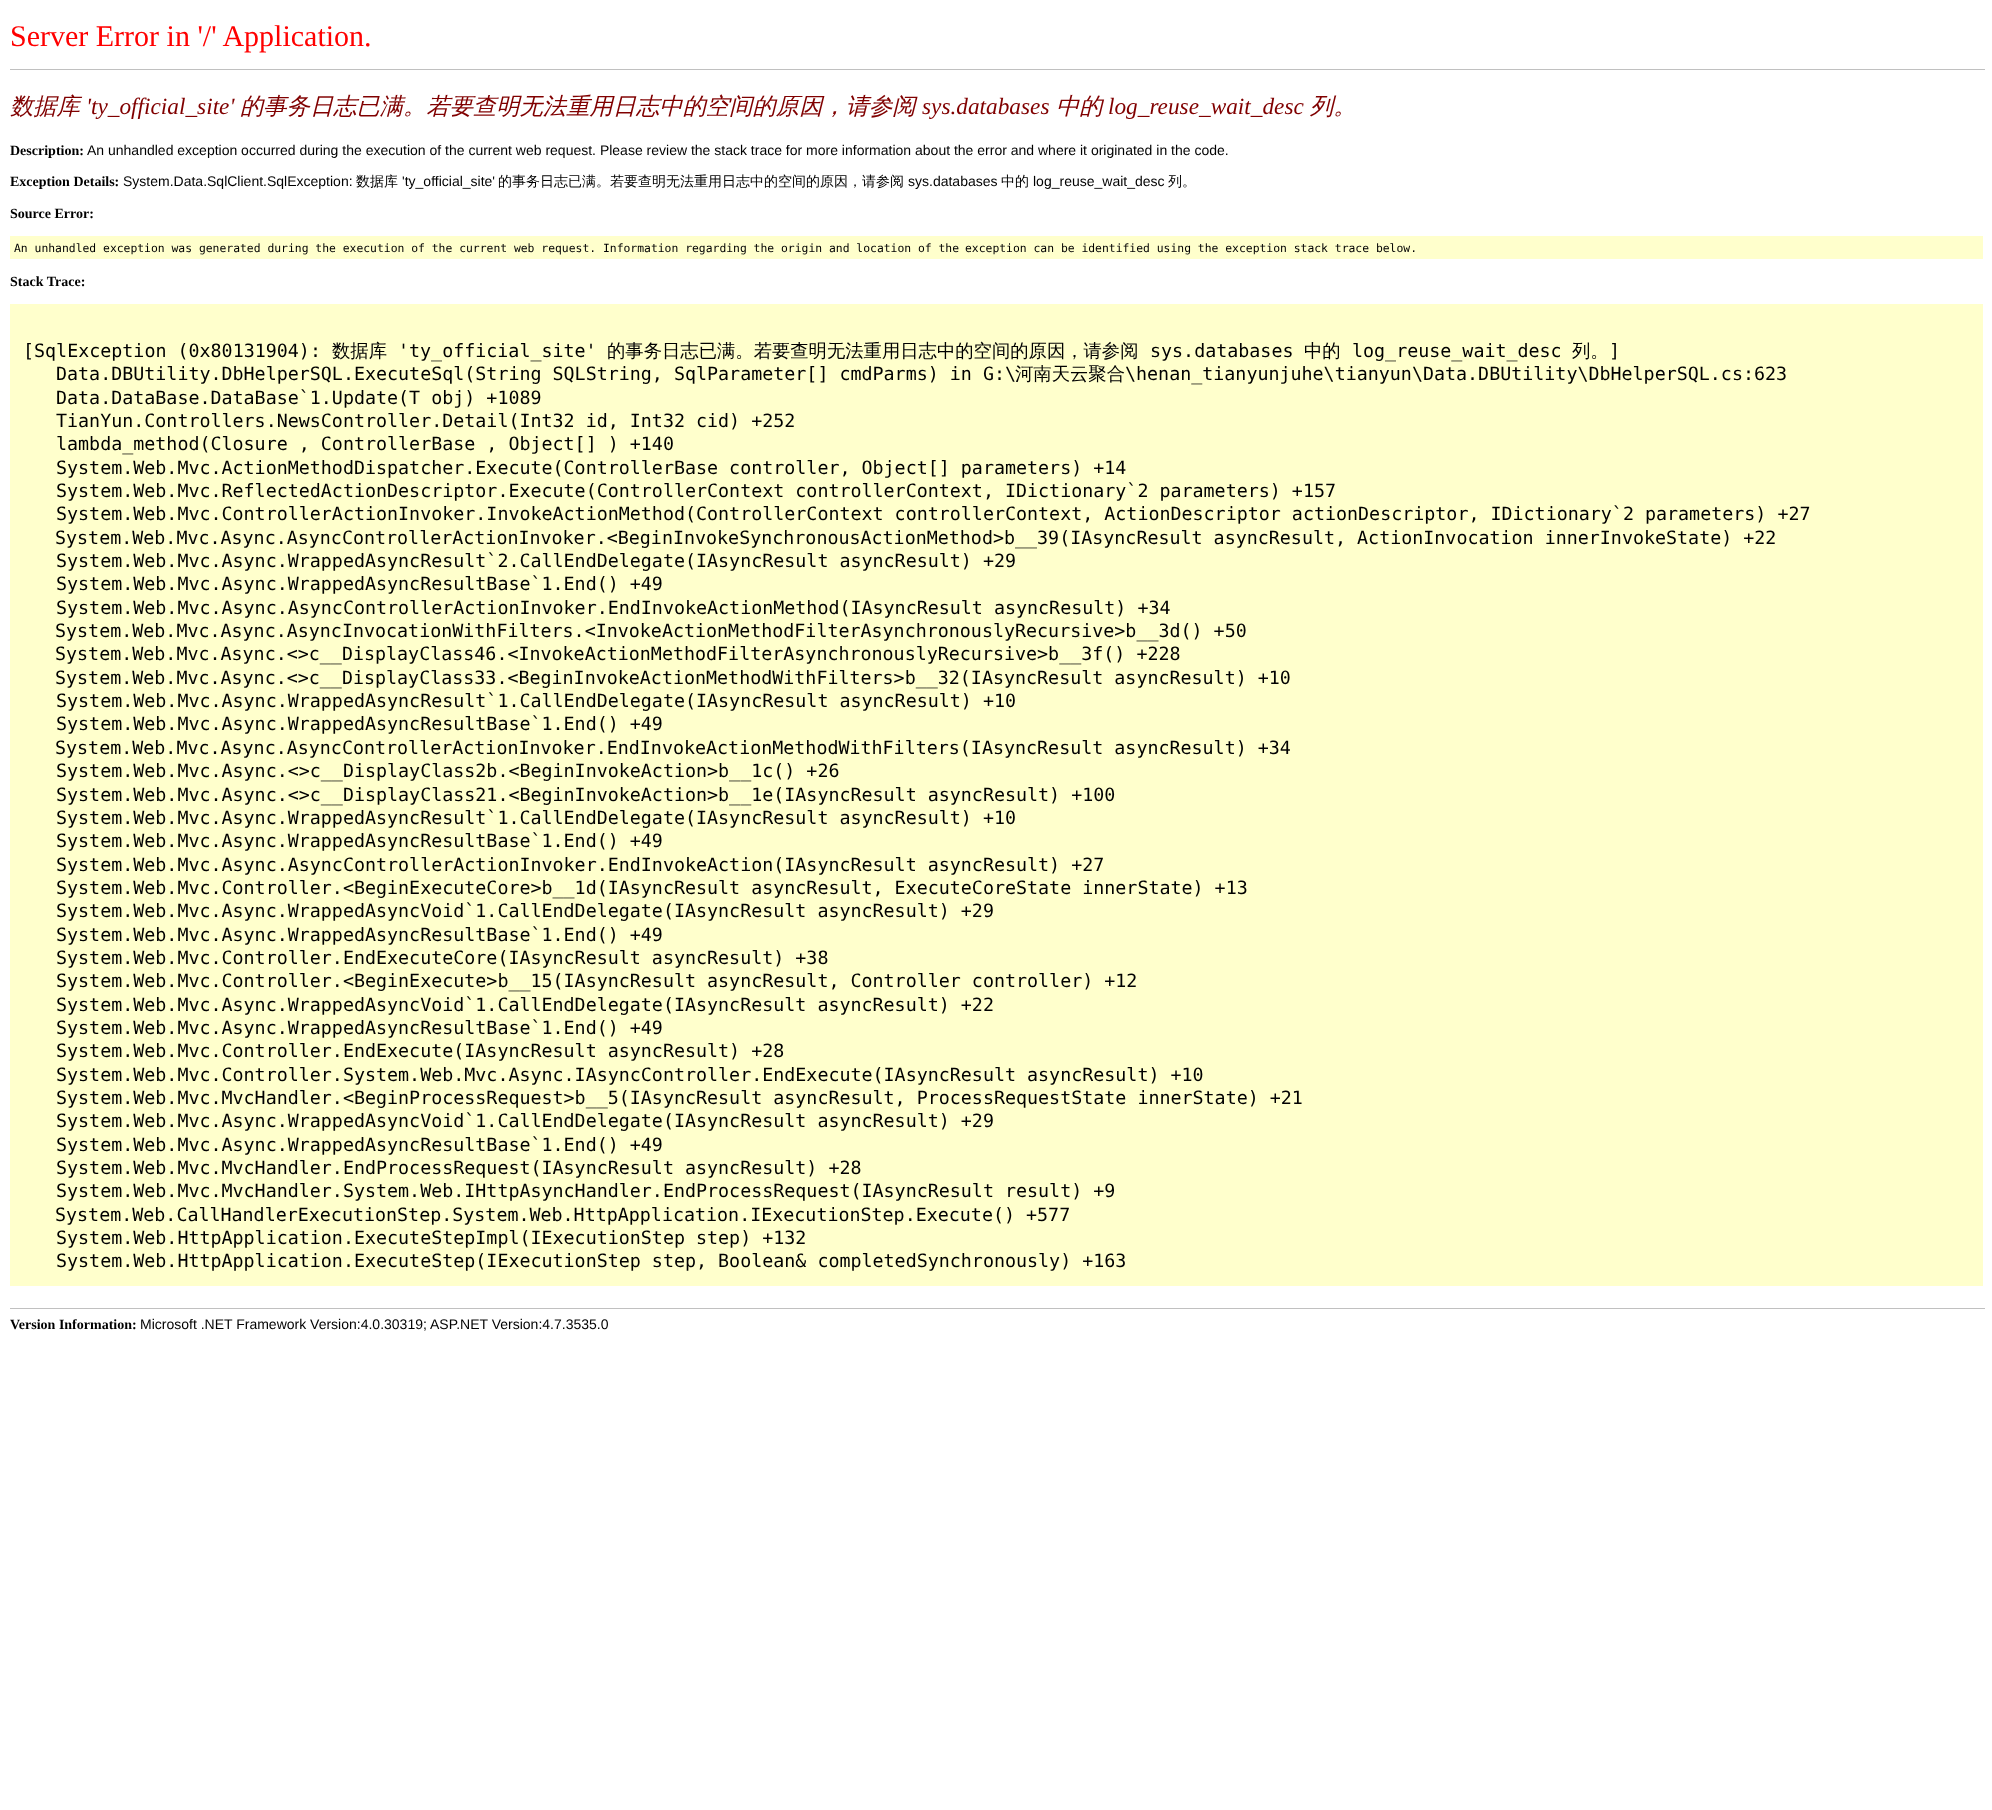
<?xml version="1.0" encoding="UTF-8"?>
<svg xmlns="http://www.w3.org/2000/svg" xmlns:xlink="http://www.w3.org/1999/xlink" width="1992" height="1810">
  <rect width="100%" height="100%" fill="#ffffff" />
  <rect x="10" y="69" width="1975" height="1" fill="#c0c0c0" />
  <rect x="10" y="236" width="1973" height="23" fill="#ffffcc" />
  <rect x="10" y="304" width="1973" height="982" fill="#ffffcc" />
  <rect x="10" y="1308" width="1975" height="1" fill="#c0c0c0" />
  <text x="10" y="46" style="font-family: Liberation Serif; font-size: 30px; fill: #ff0000">Server Error in '/' Application.</text>
  <text x="10" y="114" style="font-family: WenQuanYi Zen Hei; font-size: 23.3px; font-weight: 500; font-style: italic; fill: #800000">数据库</text>
  <text x="86" y="114" style="font-family: Liberation Serif; font-size: 23.3px; font-style: italic; fill: #800000">'ty_official_site'</text>
  <text x="240" y="114" style="font-family: WenQuanYi Zen Hei; font-size: 23.3px; font-weight: 500; font-style: italic; fill: #800000">的事务日志已满。若要查明无法重用日志中的空间的原因，请参阅</text>
  <text x="922" y="114" style="font-family: Liberation Serif; font-size: 23.3px; font-style: italic; fill: #800000">sys.databases</text>
  <text x="1056" y="114" style="font-family: WenQuanYi Zen Hei; font-size: 23.3px; font-weight: 500; font-style: italic; fill: #800000">中的</text>
  <text x="1108" y="114" style="font-family: Liberation Serif; font-size: 23.3px; font-style: italic; fill: #800000">log_reuse_wait_desc</text>
  <text x="1310" y="114" style="font-family: WenQuanYi Zen Hei; font-size: 23.3px; font-weight: 500; font-style: italic; fill: #800000">列。</text>
  <text x="10" y="155" style="font-family: Liberation Serif; font-size: 14px; font-weight: bold; fill: #000000">Description:</text>
  <text x="87" y="155" style="font-family: Liberation Sans; font-size: 14px; fill: #000000">An unhandled exception occurred during the execution of the current web request. Please review the stack trace for more information about the error and where it originated in the code.</text>
  <text x="10" y="186" style="font-family: Liberation Serif; font-size: 14px; font-weight: bold; fill: #000000">Exception Details:</text>
  <text x="123" y="186" style="font-family: Liberation Sans; font-size: 14px; fill: #000000">System.Data.SqlClient.SqlException:</text>
  <text x="356" y="186" style="font-family: WenQuanYi Zen Hei; font-size: 14px; font-weight: 500; fill: #000000">数据库</text>
  <text x="402" y="186" style="font-family: Liberation Sans; font-size: 14px; fill: #000000">'ty_official_site'</text>
  <text x="498" y="186" style="font-family: WenQuanYi Zen Hei; font-size: 14px; font-weight: 500; fill: #000000">的事务日志已满。若要查明无法重用日志中的空间的原因，请参阅</text>
  <text x="908" y="186" style="font-family: Liberation Sans; font-size: 14px; fill: #000000">sys.databases</text>
  <text x="1001" y="186" style="font-family: WenQuanYi Zen Hei; font-size: 14px; font-weight: 500; fill: #000000">中的</text>
  <text x="1033" y="186" style="font-family: Liberation Sans; font-size: 14px; fill: #000000">log_reuse_wait_desc</text>
  <text x="1168" y="186" style="font-family: WenQuanYi Zen Hei; font-size: 14px; font-weight: 500; fill: #000000">列。</text>
  <text x="10" y="218" style="font-family: Liberation Serif; font-size: 14px; font-weight: bold; fill: #000000">Source Error:</text>
  <text x="14" y="252" style="font-family: DejaVu Sans Mono; font-size: 11.38px; fill: #000000">An unhandled exception was generated during the execution of the current web request. Information regarding the origin and location of the</text>
  <text x="965" y="252" style="font-family: DejaVu Sans Mono; font-size: 11.38px; fill: #000000">exception can be identified using the exception stack trace below.</text>
  <text x="10" y="286" style="font-family: Liberation Serif; font-size: 14px; font-weight: bold; fill: #000000">Stack Trace:</text>
  <text x="23" y="357" style="font-family: DejaVu Sans Mono; font-size: 18.33px; fill: #000000">[SqlException (0x80131904):</text>
  <text x="332" y="357" style="font-family: WenQuanYi Zen Hei; font-size: 18.33px; font-weight: 500; fill: #000000">数据库</text>
  <text x="398" y="357" style="font-family: DejaVu Sans Mono; font-size: 18.33px; fill: #000000">'ty_official_site'</text>
  <text x="607" y="357" style="font-family: WenQuanYi Zen Hei; font-size: 18.33px; font-weight: 500; fill: #000000">的事务日志已满。若要查明无法重用日志中的空间的原因，请参阅</text>
  <text x="1150" y="357" style="font-family: DejaVu Sans Mono; font-size: 18.33px; fill: #000000">sys.databases</text>
  <text x="1304" y="357" style="font-family: WenQuanYi Zen Hei; font-size: 18.33px; font-weight: 500; fill: #000000">中的</text>
  <text x="1352" y="357" style="font-family: DejaVu Sans Mono; font-size: 18.33px; fill: #000000">log_reuse_wait_desc</text>
  <text x="1572" y="357" style="font-family: WenQuanYi Zen Hei; font-size: 18.33px; font-weight: 500; fill: #000000">列。</text>
  <text x="1609" y="357" style="font-family: DejaVu Sans Mono; font-size: 18.33px; fill: #000000">]</text>
  <text x="56" y="380" style="font-family: DejaVu Sans Mono; font-size: 18.33px; fill: #000000">Data.DBUtility.DbHelperSQL.ExecuteSql(String SQLString, SqlParameter[] cmdParms) in G:\</text>
  <text x="1015" y="380" style="font-family: WenQuanYi Zen Hei; font-size: 18.33px; font-weight: 500; fill: #000000">河南天云聚合</text>
  <text x="1125" y="380" style="font-family: DejaVu Sans Mono; font-size: 18.33px; fill: #000000">\henan_tianyunjuhe\tianyun\Data.DBUtility\DbHelperSQL.cs:623</text>
  <text x="56" y="404" style="font-family: DejaVu Sans Mono; font-size: 18.33px; fill: #000000">Data.DataBase.DataBase`1.Update(T obj) +1089</text>
  <text x="56" y="427" style="font-family: DejaVu Sans Mono; font-size: 18.33px; fill: #000000">TianYun.Controllers.NewsController.Detail(Int32 id, Int32 cid) +252</text>
  <text x="56" y="450" style="font-family: DejaVu Sans Mono; font-size: 18.33px; fill: #000000">lambda_method(Closure , ControllerBase , Object[] ) +140</text>
  <text x="56" y="474" style="font-family: DejaVu Sans Mono; font-size: 18.33px; fill: #000000">System.Web.Mvc.ActionMethodDispatcher.Execute(ControllerBase controller, Object[] parameters) +14</text>
  <text x="56" y="497" style="font-family: DejaVu Sans Mono; font-size: 18.33px; fill: #000000">System.Web.Mvc.ReflectedActionDescriptor.Execute(ControllerContext controllerContext, IDictionary`2 parameters) +157</text>
  <text x="56" y="520" style="font-family: DejaVu Sans Mono; font-size: 18.33px; fill: #000000">System.Web.Mvc.ControllerActionInvoker.InvokeActionMethod(ControllerContext controllerContext, ActionDescriptor actionDescriptor, IDictionary`2 parameters) +27</text>
  <text x="55" y="544" style="font-family: DejaVu Sans Mono; font-size: 18.33px; fill: #000000">System.Web.Mvc.Async.AsyncControllerActionInvoker.&lt;BeginInvokeSynchronousActionMethod&gt;b__39(IAsyncResult asyncResult, ActionInvocation innerInvokeState) +22</text>
  <text x="56" y="567" style="font-family: DejaVu Sans Mono; font-size: 18.33px; fill: #000000">System.Web.Mvc.Async.WrappedAsyncResult`2.CallEndDelegate(IAsyncResult asyncResult) +29</text>
  <text x="56" y="590" style="font-family: DejaVu Sans Mono; font-size: 18.33px; fill: #000000">System.Web.Mvc.Async.WrappedAsyncResultBase`1.End() +49</text>
  <text x="56" y="614" style="font-family: DejaVu Sans Mono; font-size: 18.33px; fill: #000000">System.Web.Mvc.Async.AsyncControllerActionInvoker.EndInvokeActionMethod(IAsyncResult asyncResult) +34</text>
  <text x="55" y="637" style="font-family: DejaVu Sans Mono; font-size: 18.33px; fill: #000000">System.Web.Mvc.Async.AsyncInvocationWithFilters.&lt;InvokeActionMethodFilterAsynchronouslyRecursive&gt;b__3d() +50</text>
  <text x="55" y="660" style="font-family: DejaVu Sans Mono; font-size: 18.33px; fill: #000000">System.Web.Mvc.Async.&lt;&gt;c__DisplayClass46.&lt;InvokeActionMethodFilterAsynchronouslyRecursive&gt;b__3f() +228</text>
  <text x="55" y="684" style="font-family: DejaVu Sans Mono; font-size: 18.33px; fill: #000000">System.Web.Mvc.Async.&lt;&gt;c__DisplayClass33.&lt;BeginInvokeActionMethodWithFilters&gt;b__32(IAsyncResult asyncResult) +10</text>
  <text x="56" y="707" style="font-family: DejaVu Sans Mono; font-size: 18.33px; fill: #000000">System.Web.Mvc.Async.WrappedAsyncResult`1.CallEndDelegate(IAsyncResult asyncResult) +10</text>
  <text x="56" y="730" style="font-family: DejaVu Sans Mono; font-size: 18.33px; fill: #000000">System.Web.Mvc.Async.WrappedAsyncResultBase`1.End() +49</text>
  <text x="55" y="754" style="font-family: DejaVu Sans Mono; font-size: 18.33px; fill: #000000">System.Web.Mvc.Async.AsyncControllerActionInvoker.EndInvokeActionMethodWithFilters(IAsyncResult asyncResult) +34</text>
  <text x="56" y="777" style="font-family: DejaVu Sans Mono; font-size: 18.33px; fill: #000000">System.Web.Mvc.Async.&lt;&gt;c__DisplayClass2b.&lt;BeginInvokeAction&gt;b__1c() +26</text>
  <text x="56" y="801" style="font-family: DejaVu Sans Mono; font-size: 18.33px; fill: #000000">System.Web.Mvc.Async.&lt;&gt;c__DisplayClass21.&lt;BeginInvokeAction&gt;b__1e(IAsyncResult asyncResult) +100</text>
  <text x="56" y="824" style="font-family: DejaVu Sans Mono; font-size: 18.33px; fill: #000000">System.Web.Mvc.Async.WrappedAsyncResult`1.CallEndDelegate(IAsyncResult asyncResult) +10</text>
  <text x="56" y="847" style="font-family: DejaVu Sans Mono; font-size: 18.33px; fill: #000000">System.Web.Mvc.Async.WrappedAsyncResultBase`1.End() +49</text>
  <text x="56" y="871" style="font-family: DejaVu Sans Mono; font-size: 18.33px; fill: #000000">System.Web.Mvc.Async.AsyncControllerActionInvoker.EndInvokeAction(IAsyncResult asyncResult) +27</text>
  <text x="56" y="894" style="font-family: DejaVu Sans Mono; font-size: 18.33px; fill: #000000">System.Web.Mvc.Controller.&lt;BeginExecuteCore&gt;b__1d(IAsyncResult asyncResult, ExecuteCoreState innerState) +13</text>
  <text x="56" y="917" style="font-family: DejaVu Sans Mono; font-size: 18.33px; fill: #000000">System.Web.Mvc.Async.WrappedAsyncVoid`1.CallEndDelegate(IAsyncResult asyncResult) +29</text>
  <text x="56" y="941" style="font-family: DejaVu Sans Mono; font-size: 18.33px; fill: #000000">System.Web.Mvc.Async.WrappedAsyncResultBase`1.End() +49</text>
  <text x="56" y="964" style="font-family: DejaVu Sans Mono; font-size: 18.33px; fill: #000000">System.Web.Mvc.Controller.EndExecuteCore(IAsyncResult asyncResult) +38</text>
  <text x="56" y="987" style="font-family: DejaVu Sans Mono; font-size: 18.33px; fill: #000000">System.Web.Mvc.Controller.&lt;BeginExecute&gt;b__15(IAsyncResult asyncResult, Controller controller) +12</text>
  <text x="56" y="1011" style="font-family: DejaVu Sans Mono; font-size: 18.33px; fill: #000000">System.Web.Mvc.Async.WrappedAsyncVoid`1.CallEndDelegate(IAsyncResult asyncResult) +22</text>
  <text x="56" y="1034" style="font-family: DejaVu Sans Mono; font-size: 18.33px; fill: #000000">System.Web.Mvc.Async.WrappedAsyncResultBase`1.End() +49</text>
  <text x="56" y="1057" style="font-family: DejaVu Sans Mono; font-size: 18.33px; fill: #000000">System.Web.Mvc.Controller.EndExecute(IAsyncResult asyncResult) +28</text>
  <text x="56" y="1081" style="font-family: DejaVu Sans Mono; font-size: 18.33px; fill: #000000">System.Web.Mvc.Controller.System.Web.Mvc.Async.IAsyncController.EndExecute(IAsyncResult asyncResult) +10</text>
  <text x="56" y="1104" style="font-family: DejaVu Sans Mono; font-size: 18.33px; fill: #000000">System.Web.Mvc.MvcHandler.&lt;BeginProcessRequest&gt;b__5(IAsyncResult asyncResult, ProcessRequestState innerState) +21</text>
  <text x="56" y="1127" style="font-family: DejaVu Sans Mono; font-size: 18.33px; fill: #000000">System.Web.Mvc.Async.WrappedAsyncVoid`1.CallEndDelegate(IAsyncResult asyncResult) +29</text>
  <text x="56" y="1151" style="font-family: DejaVu Sans Mono; font-size: 18.33px; fill: #000000">System.Web.Mvc.Async.WrappedAsyncResultBase`1.End() +49</text>
  <text x="56" y="1174" style="font-family: DejaVu Sans Mono; font-size: 18.33px; fill: #000000">System.Web.Mvc.MvcHandler.EndProcessRequest(IAsyncResult asyncResult) +28</text>
  <text x="56" y="1197" style="font-family: DejaVu Sans Mono; font-size: 18.33px; fill: #000000">System.Web.Mvc.MvcHandler.System.Web.IHttpAsyncHandler.EndProcessRequest(IAsyncResult result) +9</text>
  <text x="55" y="1221" style="font-family: DejaVu Sans Mono; font-size: 18.33px; fill: #000000">System.Web.CallHandlerExecutionStep.System.Web.HttpApplication.IExecutionStep.Execute() +577</text>
  <text x="56" y="1244" style="font-family: DejaVu Sans Mono; font-size: 18.33px; fill: #000000">System.Web.HttpApplication.ExecuteStepImpl(IExecutionStep step) +132</text>
  <text x="56" y="1267" style="font-family: DejaVu Sans Mono; font-size: 18.33px; fill: #000000">System.Web.HttpApplication.ExecuteStep(IExecutionStep step, Boolean&amp; completedSynchronously) +163</text>
  <text x="10" y="1329" style="font-family: Liberation Serif; font-size: 14px; font-weight: bold; fill: #000000">Version Information:</text>
  <text x="140" y="1329" style="font-family: Liberation Sans; font-size: 14px; fill: #000000">Microsoft .NET Framework Version:4.0.30319; ASP.NET Version:4.7.3535.0</text>
</svg>
